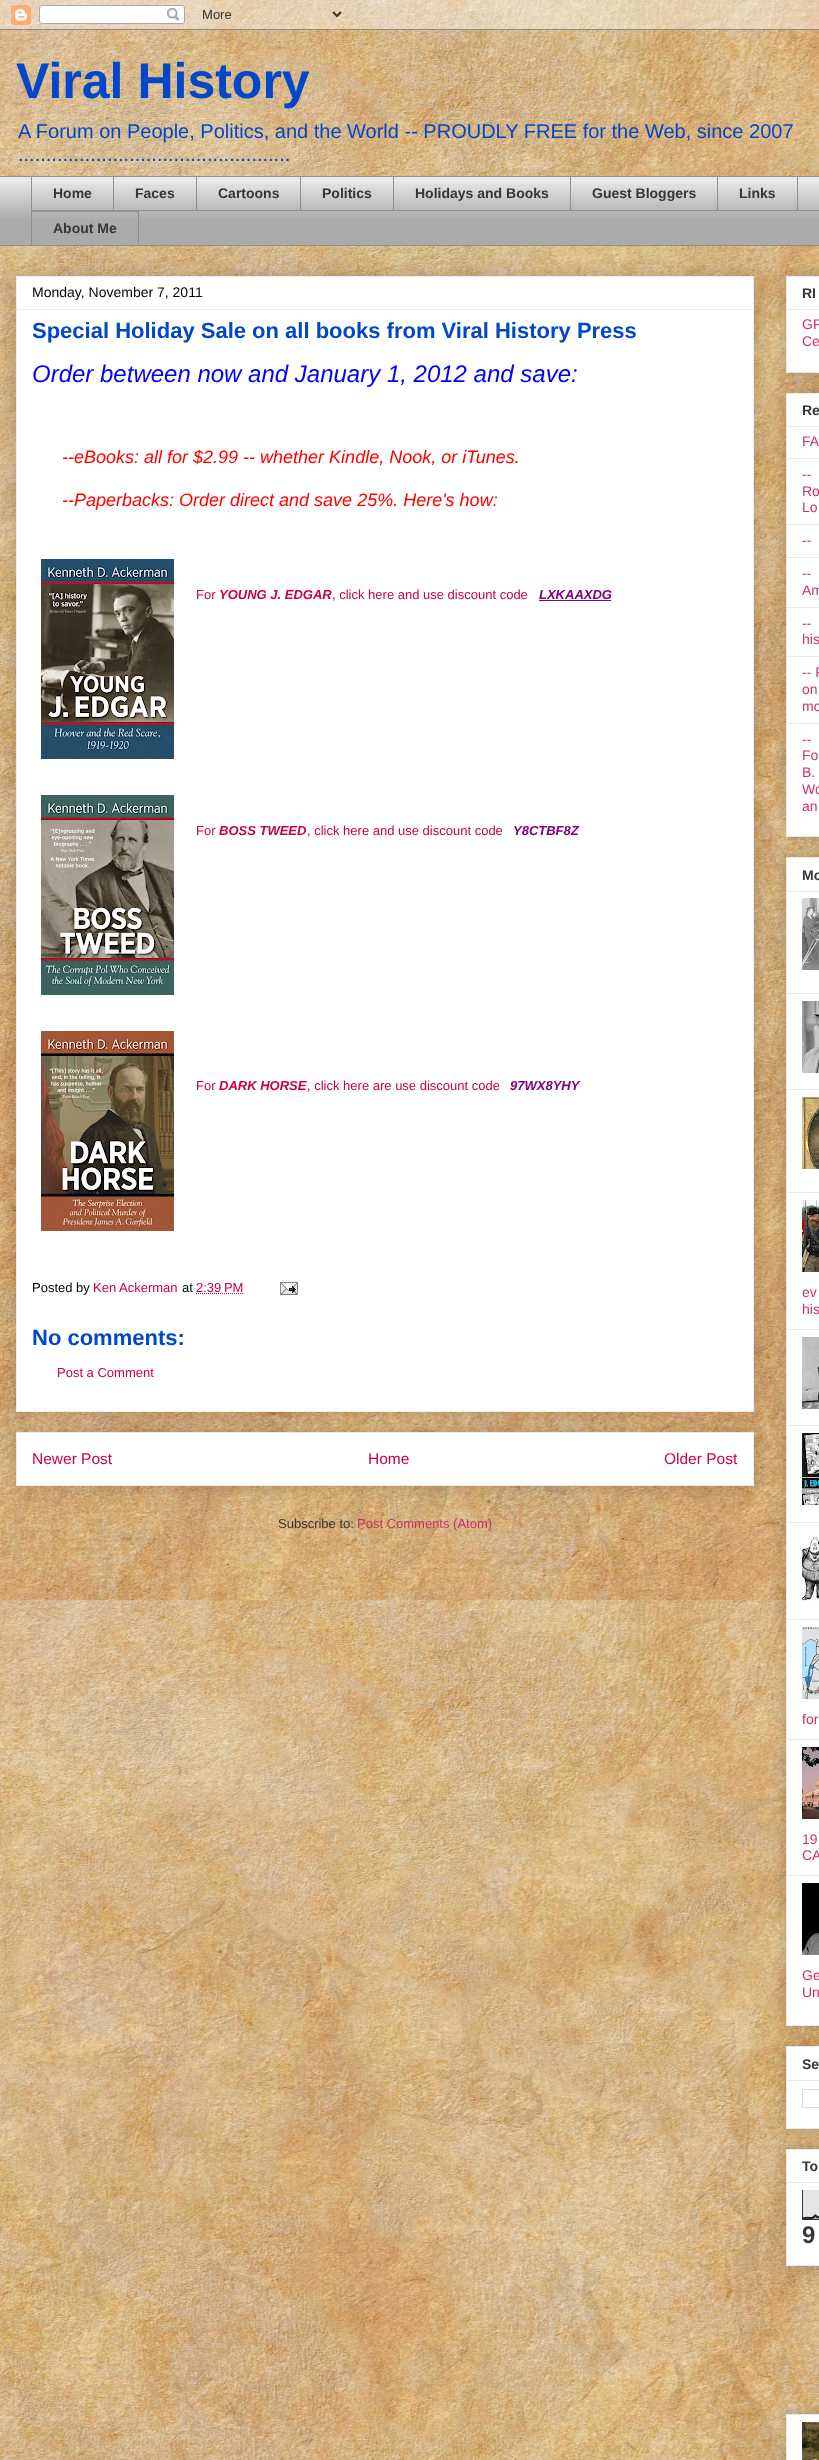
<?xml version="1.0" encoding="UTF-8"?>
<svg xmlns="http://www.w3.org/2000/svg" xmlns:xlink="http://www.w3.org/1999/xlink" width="819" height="2460">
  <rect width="100%" height="100%" fill="#ffffff" />
  <image x="0" y="0" width="819" height="2460" xlink:href="image1.png" />
  <image x="0" y="0" width="819" height="30" xlink:href="image2.png" />
  <rect y="177" width="819" height="68" fill="#eaeaea" />
  <image x="0" y="182" width="819" height="63" xlink:href="image3.png" />
  <rect y="176" width="819" height="1" fill="#909090" />
  <rect x="31" y="210" width="788" height="1" fill="#909090" />
  <rect x="31" y="176" width="1" height="35" fill="#909090" />
  <rect x="113" y="176" width="1" height="35" fill="#909090" />
  <rect x="196" y="176" width="1" height="35" fill="#909090" />
  <rect x="300" y="176" width="1" height="35" fill="#909090" />
  <rect x="393" y="176" width="1" height="35" fill="#909090" />
  <rect x="570" y="176" width="1" height="35" fill="#909090" />
  <rect x="717" y="176" width="1" height="35" fill="#909090" />
  <rect x="797" y="176" width="1" height="35" fill="#909090" />
  <rect x="31.5" y="211.5" width="107" height="34" fill="none" stroke="#909090" />
  <rect y="245" width="819" height="1" fill="#909090" />
  <rect x="16" y="1432" width="738" height="54" fill="#000000" fill-opacity="0.2" filter="blur(10px)" />
  <rect x="16.5" y="1432.5" width="737" height="53" fill="#ffffff" stroke="#eaeaea" />
  <rect x="16" y="276" width="738" height="1136" fill="#000000" fill-opacity="0.2" filter="blur(10px)" />
  <rect x="16.5" y="276.5" width="737" height="1135" fill="#ffffff" stroke="#ededed" />
  <rect x="17" y="309" width="736" height="1" fill="#eaeaea" />
  <image x="41" y="559" width="133" height="200" xlink:href="image4.png" />
  <rect x="539" y="600" width="72" height="1" fill="#800080" />
  <image x="41" y="795" width="133" height="200" xlink:href="image5.png" />
  <image x="41" y="1031" width="133" height="200" xlink:href="image6.png" />
  <path d="M 196 1293.5 h 47.5" fill="none" stroke="#ca0047" stroke-dasharray="1 1" />
  <image x="280" y="1282" width="18" height="13" xlink:href="image7.png" />
  <rect x="786" y="276" width="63" height="97" fill="#000000" fill-opacity="0.2" filter="blur(10px)" />
  <rect x="786.5" y="276.5" width="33" height="96" fill="#ffffff" stroke="#eaeaea" />
  <rect x="787" y="309" width="32" height="1" fill="#eaeaea" />
  <rect x="786" y="393" width="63" height="444" fill="#000000" fill-opacity="0.2" filter="blur(10px)" />
  <rect x="786.5" y="393.5" width="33" height="443" fill="#ffffff" stroke="#eaeaea" />
  <rect x="787" y="426" width="32" height="1" fill="#eaeaea" />
  <rect x="787" y="458" width="32" height="1" fill="#eaeaea" />
  <rect x="787" y="524" width="32" height="1" fill="#eaeaea" />
  <rect x="787" y="557" width="32" height="1" fill="#eaeaea" />
  <rect x="787" y="607" width="32" height="1" fill="#eaeaea" />
  <rect x="787" y="656" width="32" height="1" fill="#eaeaea" />
  <rect x="787" y="723" width="32" height="1" fill="#eaeaea" />
  <rect x="786" y="857" width="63" height="1169" fill="#000000" fill-opacity="0.2" filter="blur(10px)" />
  <rect x="786.5" y="857.5" width="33" height="1168" fill="#ffffff" stroke="#eaeaea" />
  <rect x="787" y="891" width="32" height="1" fill="#eaeaea" />
  <image x="802" y="898" width="17" height="72" xlink:href="image8.png" />
  <rect x="787" y="993" width="32" height="1" fill="#eaeaea" />
  <image x="802" y="1001" width="17" height="72" xlink:href="image9.png" />
  <rect x="787" y="1089" width="32" height="1" fill="#eaeaea" />
  <image x="802" y="1097" width="17" height="72" xlink:href="image10.png" />
  <rect x="787" y="1192" width="32" height="1" fill="#eaeaea" />
  <image x="802" y="1200" width="17" height="72" xlink:href="image11.png" />
  <rect x="787" y="1329" width="32" height="1" fill="#eaeaea" />
  <image x="802" y="1337" width="17" height="72" xlink:href="image12.png" />
  <rect x="787" y="1425" width="32" height="1" fill="#eaeaea" />
  <image x="802" y="1433" width="17" height="72" xlink:href="image13.png" />
  <rect x="787" y="1522" width="32" height="1" fill="#eaeaea" />
  <image x="802" y="1532" width="17" height="70" xlink:href="image14.png" />
  <rect x="787" y="1619" width="32" height="1" fill="#eaeaea" />
  <image x="802" y="1627" width="17" height="72" xlink:href="image15.png" />
  <rect x="787" y="1739" width="32" height="1" fill="#eaeaea" />
  <image x="802" y="1747" width="17" height="72" xlink:href="image16.png" />
  <rect x="787" y="1875" width="32" height="1" fill="#eaeaea" />
  <image x="802" y="1883" width="17" height="72" xlink:href="image17.png" />
  <rect x="786" y="2046" width="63" height="83" fill="#000000" fill-opacity="0.2" filter="blur(10px)" />
  <rect x="786.5" y="2046.5" width="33" height="82" fill="#ffffff" stroke="#eaeaea" />
  <rect x="787" y="2080" width="32" height="1" fill="#eaeaea" />
  <rect x="802.5" y="2089.5" width="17" height="18" fill="none" stroke="#dddddd" />
  <rect x="786" y="2149" width="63" height="117" fill="#000000" fill-opacity="0.2" filter="blur(10px)" />
  <rect x="786.5" y="2149.5" width="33" height="116" fill="#ffffff" stroke="#eaeaea" />
  <rect x="787" y="2182" width="32" height="1" fill="#eaeaea" />
  <image x="802" y="2190" width="17" height="30" xlink:href="image18.png" />
  <rect x="786" y="2414" width="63" height="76" fill="#000000" fill-opacity="0.2" filter="blur(10px)" />
  <rect x="786.5" y="2414.5" width="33" height="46" fill="#ffffff" stroke="#eaeaea" />
  <image x="802" y="2422" width="17" height="38" xlink:href="image19.png" />
  <text x="16" y="98" style="font-family: Liberation Sans; font-size: 50px; font-weight: bold; fill: #0047ca">Viral History</text>
  <text x="18" y="138" style="font-family: Liberation Sans; font-size: 20px; fill: #0047ca">A Forum on People, Politics, and the World -- PROUDLY FREE for the Web, since 2007</text>
  <text x="18" y="161" style="font-family: Liberation Sans; font-size: 20px; fill: #0047ca">.................................................</text>
  <text x="53" y="198" style="font-family: Liberation Sans; font-size: 14px; font-weight: bold; fill: #363636">Home</text>
  <text x="135" y="198" style="font-family: Liberation Sans; font-size: 14px; font-weight: bold; fill: #363636">Faces</text>
  <text x="218" y="198" style="font-family: Liberation Sans; font-size: 14px; font-weight: bold; fill: #363636">Cartoons</text>
  <text x="322" y="198" style="font-family: Liberation Sans; font-size: 14px; font-weight: bold; fill: #363636">Politics</text>
  <text x="415" y="198" style="font-family: Liberation Sans; font-size: 14px; font-weight: bold; fill: #363636">Holidays and Books</text>
  <text x="592" y="198" style="font-family: Liberation Sans; font-size: 14px; font-weight: bold; fill: #363636">Guest Bloggers</text>
  <text x="739" y="198" style="font-family: Liberation Sans; font-size: 14px; font-weight: bold; fill: #363636">Links</text>
  <text x="53" y="233" style="font-family: Liberation Sans; font-size: 14px; font-weight: bold; fill: #363636">About Me</text>
  <text x="32" y="297" style="font-family: Liberation Sans; font-size: 14px; fill: #000000">Monday, November 7, 2011</text>
  <text x="32" y="338" style="font-family: Liberation Sans; font-size: 22px; font-weight: bold; fill: #0047ca">Special Holiday Sale on all books from Viral History Press</text>
  <text x="32" y="382" style="font-family: Liberation Sans; font-size: 24px; font-style: italic; fill: #0000ff">Order between now and January 1, 2012 and save:</text>
  <text x="62" y="463" style="font-family: Liberation Sans; font-size: 18px; font-style: italic; fill: #ff0000">--eBooks: all for $2.99 -- whether Kindle, Nook, or iTunes.</text>
  <text x="62" y="506" style="font-family: Liberation Sans; font-size: 18px; font-style: italic; fill: #ff0000">--Paperbacks: Order direct and save 25%. Here's how:</text>
  <text x="196" y="599" style="font-family: Liberation Sans; font-size: 13px; fill: #ca0047">For</text>
  <text x="219" y="599" style="font-family: Liberation Sans; font-size: 13px; font-weight: bold; font-style: italic; fill: #ca0047">YOUNG J. EDGAR</text>
  <text x="332" y="599" style="font-family: Liberation Sans; font-size: 13px; fill: #ca0047">, click here and use discount code</text>
  <text x="539" y="599" style="font-family: Liberation Sans; font-size: 13px; font-weight: bold; font-style: italic; fill: #800080">LXKAAXDG</text>
  <text x="196" y="835" style="font-family: Liberation Sans; font-size: 13px; fill: #ca0047">For</text>
  <text x="219" y="835" style="font-family: Liberation Sans; font-size: 13px; font-weight: bold; font-style: italic; fill: #ca0047">BOSS TWEED</text>
  <text x="307" y="835" style="font-family: Liberation Sans; font-size: 13px; fill: #ca0047">, click here and use discount code</text>
  <text x="513" y="835" style="font-family: Liberation Sans; font-size: 13px; font-weight: bold; font-style: italic; fill: #800080">Y8CTBF8Z</text>
  <text x="196" y="1090" style="font-family: Liberation Sans; font-size: 13px; fill: #ca0047">For</text>
  <text x="219" y="1090" style="font-family: Liberation Sans; font-size: 13px; font-weight: bold; font-style: italic; fill: #ca0047">DARK HORSE</text>
  <text x="307" y="1090" style="font-family: Liberation Sans; font-size: 13px; fill: #ca0047">, click here are use discount code</text>
  <text x="510" y="1090" style="font-family: Liberation Sans; font-size: 13px; font-weight: bold; font-style: italic; fill: #800080">97WX8YHY</text>
  <text x="32" y="1292" style="font-family: Liberation Sans; font-size: 13px; fill: #000000">Posted by</text>
  <text x="93" y="1292" style="font-family: Liberation Sans; font-size: 13px; fill: #ca0047">Ken Ackerman</text>
  <text x="182" y="1292" style="font-family: Liberation Sans; font-size: 13px; fill: #000000">at</text>
  <text x="196" y="1292" style="font-family: Liberation Sans; font-size: 13px; fill: #ca0047">2:39 PM</text>
  <text x="32" y="1345" style="font-family: Liberation Sans; font-size: 22px; font-weight: bold; fill: #0047ca">No comments:</text>
  <text x="57" y="1377" style="font-family: Liberation Sans; font-size: 13px; fill: #ca0047">Post a Comment</text>
  <text x="32" y="1464" style="font-family: Liberation Sans; font-size: 15.5px; fill: #ca0047">Newer Post</text>
  <text x="368" y="1464" style="font-family: Liberation Sans; font-size: 15.5px; fill: #ca0047">Home</text>
  <text x="664" y="1464" style="font-family: Liberation Sans; font-size: 15.5px; fill: #ca0047">Older Post</text>
  <text x="278" y="1528" style="font-family: Liberation Sans; font-size: 13px; fill: #363636">Subscribe to:</text>
  <text x="357" y="1528" style="font-family: Liberation Sans; font-size: 13px; fill: #ca3268">Post Comments (Atom)</text>
  <text x="802" y="298" style="font-family: Liberation Sans; font-size: 14px; font-weight: bold; fill: #363636">RI</text>
  <text x="802" y="329" style="font-family: Liberation Sans; font-size: 14px; fill: #ca3268">GR</text>
  <text x="802" y="346" style="font-family: Liberation Sans; font-size: 14px; fill: #ca3268">Ce</text>
  <text x="802" y="415" style="font-family: Liberation Sans; font-size: 14px; font-weight: bold; fill: #363636">Re</text>
  <text x="802" y="446" style="font-family: Liberation Sans; font-size: 14px; fill: #ca3268">FA</text>
  <text x="802" y="479" style="font-family: Liberation Sans; font-size: 14px; fill: #ca3268">--</text>
  <text x="802" y="496" style="font-family: Liberation Sans; font-size: 14px; fill: #ca3268">Ro</text>
  <text x="802" y="512" style="font-family: Liberation Sans; font-size: 14px; fill: #ca3268">Lo</text>
  <text x="802" y="545" style="font-family: Liberation Sans; font-size: 14px; fill: #ca3268">--</text>
  <text x="802" y="578" style="font-family: Liberation Sans; font-size: 14px; fill: #ca3268">--</text>
  <text x="802" y="595" style="font-family: Liberation Sans; font-size: 14px; fill: #ca3268">Am</text>
  <text x="802" y="628" style="font-family: Liberation Sans; font-size: 14px; fill: #ca3268">--</text>
  <text x="802" y="644" style="font-family: Liberation Sans; font-size: 14px; fill: #ca3268">his</text>
  <text x="802" y="677" style="font-family: Liberation Sans; font-size: 14px; fill: #ca3268">-- P</text>
  <text x="802" y="694" style="font-family: Liberation Sans; font-size: 14px; fill: #ca3268">on</text>
  <text x="802" y="711" style="font-family: Liberation Sans; font-size: 14px; fill: #ca3268">mo</text>
  <text x="802" y="744" style="font-family: Liberation Sans; font-size: 14px; fill: #ca3268">--</text>
  <text x="802" y="760" style="font-family: Liberation Sans; font-size: 14px; fill: #ca3268">Fo</text>
  <text x="802" y="777" style="font-family: Liberation Sans; font-size: 14px; fill: #ca3268">B.</text>
  <text x="802" y="794" style="font-family: Liberation Sans; font-size: 14px; fill: #ca3268">Wo</text>
  <text x="802" y="811" style="font-family: Liberation Sans; font-size: 14px; fill: #ca3268">an</text>
  <text x="802" y="880" style="font-family: Liberation Sans; font-size: 14px; font-weight: bold; fill: #363636">Mo</text>
  <text x="802" y="1297" style="font-family: Liberation Sans; font-size: 14px; fill: #ca3268">ev</text>
  <text x="802" y="1314" style="font-family: Liberation Sans; font-size: 14px; fill: #ca3268">his</text>
  <text x="802" y="1724" style="font-family: Liberation Sans; font-size: 14px; fill: #ca3268">for</text>
  <text x="802" y="1844" style="font-family: Liberation Sans; font-size: 14px; fill: #ca3268">19</text>
  <text x="802" y="1860" style="font-family: Liberation Sans; font-size: 14px; fill: #ca3268">CA</text>
  <text x="802" y="1980" style="font-family: Liberation Sans; font-size: 14px; fill: #ca3268">Ge</text>
  <text x="802" y="1997" style="font-family: Liberation Sans; font-size: 14px; fill: #ca3268">Un</text>
  <text x="802" y="2069" style="font-family: Liberation Sans; font-size: 14px; font-weight: bold; fill: #363636">Se</text>
  <text x="802" y="2171" style="font-family: Liberation Sans; font-size: 14px; font-weight: bold; fill: #363636">To</text>
  <text x="802" y="2243" style="font-family: Liberation Sans; font-size: 24px; font-weight: bold; fill: #363636">9</text>
</svg>
